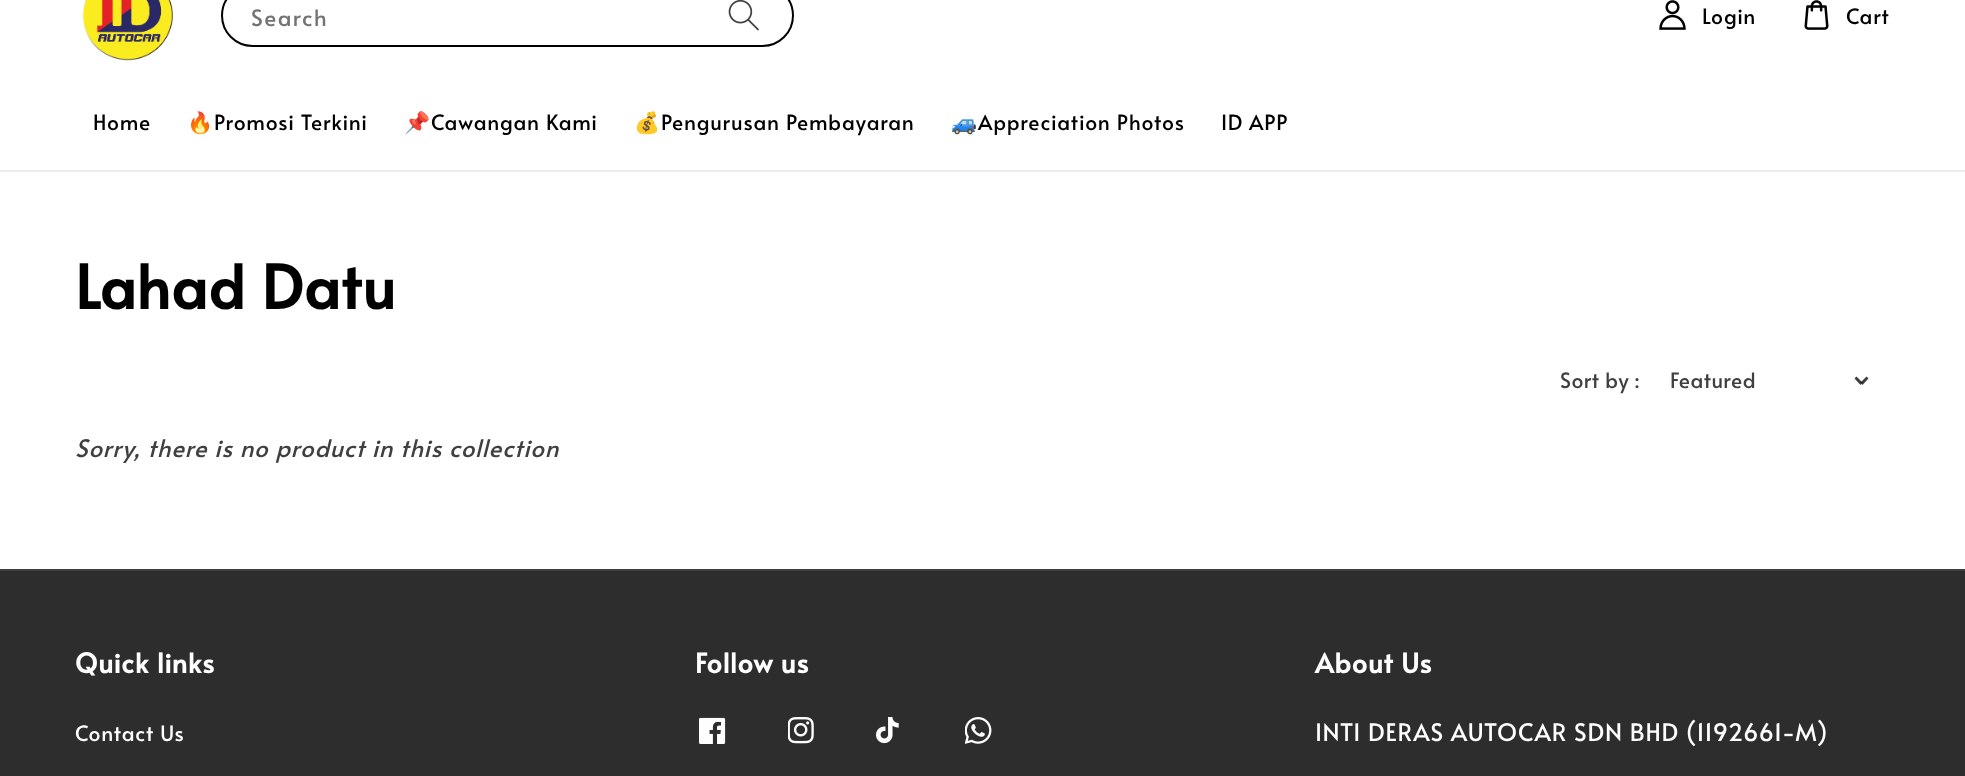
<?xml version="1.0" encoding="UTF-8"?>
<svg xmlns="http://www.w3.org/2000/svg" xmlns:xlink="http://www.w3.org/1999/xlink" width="1965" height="776">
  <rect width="100%" height="100%" fill="#ffffff" />
  <rect y="170" width="1965" height="2" fill="#ebebeb" />
  <image x="83" y="0" width="90" height="61" xlink:href="image1.png" />
  <rect x="222" y="-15" width="571" height="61" rx="30.5" fill="none" stroke="#000000" stroke-width="2" />
  <image x="728" y="0" width="31" height="31" xlink:href="image2.png" />
  <image x="1659" y="0" width="27" height="30" xlink:href="image3.png" />
  <image x="1804" y="0" width="25" height="30" xlink:href="image4.png" />
  <path d="M 1866.5 376.5 l 2 2 l -6 6.5 l -2 -2.5 z" fill="#404040" />
  <path d="M 1854.5 378.5 l 2 -2 l 6 6 l -2 2.5 z" fill="#000000" fill-opacity="0.75" />
  <rect y="571" width="1965" height="205" fill="#2d2d2d" />
  <rect y="569" width="1965" height="2" fill="#3e3e3e" />
  <image x="699" y="717" width="27" height="27" xlink:href="image5.png" />
  <image x="788" y="717" width="26" height="27" xlink:href="image6.png" />
  <image x="876" y="717" width="23" height="27" xlink:href="image7.png" />
  <image x="965" y="717" width="27" height="27" xlink:href="image8.png" />
  <text x="251" y="26" style="font-family: Alata; font-size: 22.5px; letter-spacing: 1.5px; fill: #737373">Search</text>
  <text x="1702" y="24" style="font-family: Alata; font-size: 21px; letter-spacing: 0.9px; fill: #000000">Login</text>
  <text x="1846" y="24" style="font-family: Alata; font-size: 21px; letter-spacing: 0.9px; fill: #000000">Cart</text>
  <text x="93" y="130" style="font-family: Alata; font-size: 21px; letter-spacing: 0.9px; fill: #000000">Home</text>
  <text x="187" y="130" style="font-family: Noto Color Emoji; font-size: 21px; letter-spacing: 0.9px; fill: #000000">🔥</text>
  <text x="214" y="130" style="font-family: Alata; font-size: 21px; letter-spacing: 0.9px; fill: #000000">Promosi Terkini</text>
  <text x="404" y="130" style="font-family: Noto Color Emoji; font-size: 21px; letter-spacing: 0.9px; fill: #000000">📌</text>
  <text x="431" y="130" style="font-family: Alata; font-size: 21px; letter-spacing: 0.9px; fill: #000000">Cawangan Kami</text>
  <text x="634" y="130" style="font-family: Noto Color Emoji; font-size: 21px; letter-spacing: 0.9px; fill: #000000">💰</text>
  <text x="661" y="130" style="font-family: Alata; font-size: 21px; letter-spacing: 0.9px; fill: #000000">Pengurusan Pembayaran</text>
  <text x="951" y="130" style="font-family: Noto Color Emoji; font-size: 21px; letter-spacing: 0.9px; fill: #000000">🚙</text>
  <text x="978" y="130" style="font-family: Alata; font-size: 21px; letter-spacing: 0.9px; fill: #000000">Appreciation Photos</text>
  <text x="1221" y="130" style="font-family: Alata; font-size: 21px; letter-spacing: 0.9px; fill: #000000">ID APP</text>
  <text x="75" y="309" style="font-family: Alata; font-size: 60px; font-weight: bold; letter-spacing: 0.9px; fill: #000000">Lahad Datu</text>
  <text x="1560" y="388" style="font-family: Alata; font-size: 21px; letter-spacing: 0.5px; fill: #404040">Sort by :</text>
  <text x="1670" y="388" style="font-family: Alata; font-size: 21px; letter-spacing: 0.5px; fill: #404040">Featured</text>
  <text x="75" y="457" style="font-family: Alata; font-size: 24px; font-style: italic; letter-spacing: 0.9px; fill: #404040">Sorry, there is no product in this collection</text>
  <text x="75" y="673" style="font-family: Alata; font-size: 27px; font-weight: bold; letter-spacing: 0.9px; fill: #ffffff">Quick links</text>
  <text x="75" y="741" style="font-family: Alata; font-size: 21px; letter-spacing: 0.9px; fill: #ffffff">Contact Us</text>
  <text x="695" y="673" style="font-family: Alata; font-size: 27px; font-weight: bold; letter-spacing: 0.9px; fill: #ffffff">Follow us</text>
  <text x="1315" y="673" style="font-family: Alata; font-size: 27px; font-weight: bold; letter-spacing: 0.9px; fill: #ffffff">About Us</text>
  <text x="1315" y="741" style="font-family: Alata; font-size: 24px; letter-spacing: 0.9px; fill: #ffffff">INTI DERAS AUTOCAR SDN BHD (1192661-M)</text>
</svg>
